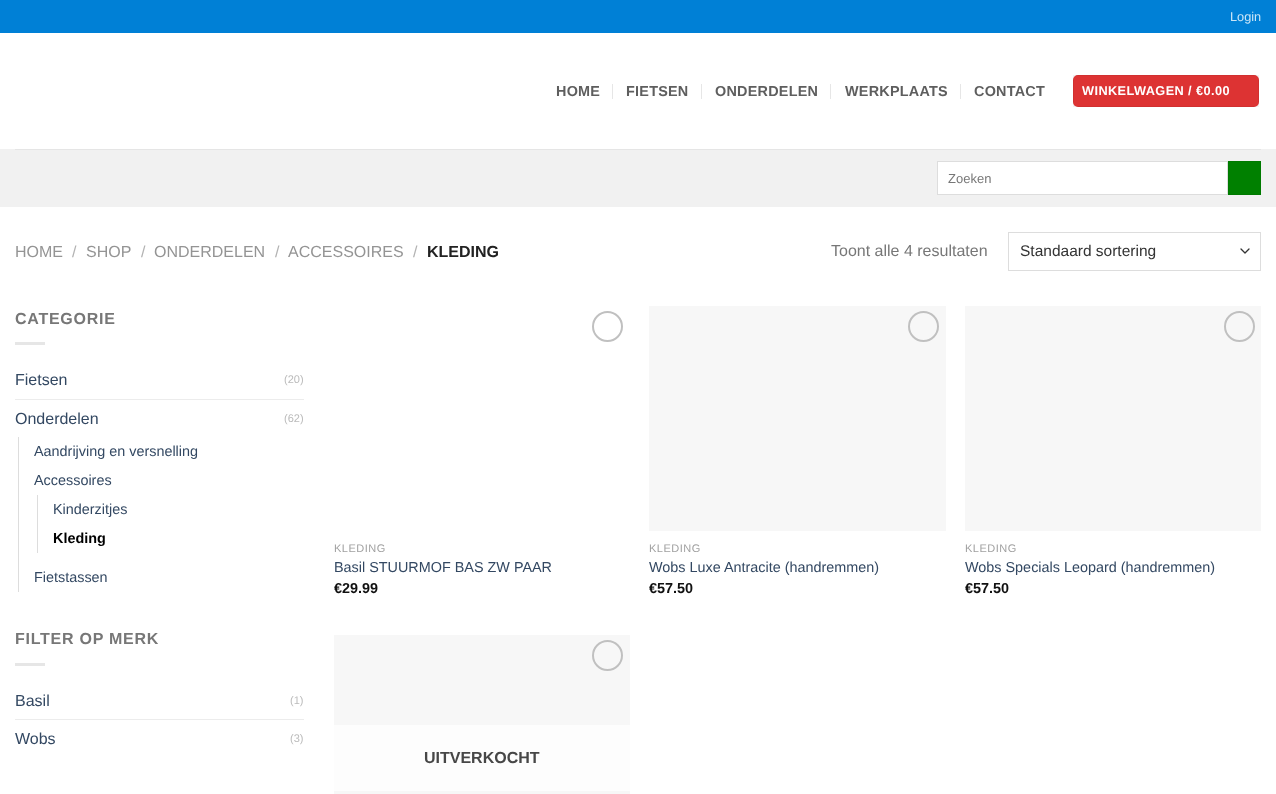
<?xml version="1.0" encoding="UTF-8"?>
<svg xmlns="http://www.w3.org/2000/svg" xmlns:xlink="http://www.w3.org/1999/xlink" width="1276" height="794">
  <rect width="100%" height="100%" fill="#ffffff" />
  <rect width="1276" height="33" fill="#0080d6" />
  <rect x="612" y="84" width="1" height="15" fill="#e6e6e6" />
  <rect x="701" y="84" width="1" height="15" fill="#e6e6e6" />
  <rect x="830" y="84" width="1" height="15" fill="#e6e6e6" />
  <rect x="960" y="84" width="1" height="15" fill="#e6e6e6" />
  <rect x="1073" y="75" width="186" height="32" rx="5" fill="#dd3333" />
  <rect x="1073.5" y="75.5" width="185" height="31" fill="none" stroke="#000000" stroke-opacity="0.05" />
  <rect y="149" width="1276" height="58" fill="#f1f1f1" />
  <rect x="15" y="149" width="1246" height="1" fill="#e5e5e5" />
  <rect x="937.5" y="161.5" width="290" height="33" fill="#ffffff" stroke="#dddddd" />
  <rect x="1228.5" y="161.5" width="32" height="33" fill="#008000" stroke="#007a00" />
  <path d="M 1241 249 l 4 4 l 4 -4" fill="none" stroke="#333333" stroke-width="1.3" stroke-linecap="round" stroke-linejoin="round" />
  <rect x="1008.5" y="232.5" width="252" height="38" fill="none" stroke="#dddddd" />
  <rect x="15" y="342" width="30" height="3" fill="#e6e6e6" />
  <rect x="15" y="399" width="289" height="1" fill="#ececec" />
  <rect x="18" y="437" width="1" height="155" fill="#dddddd" />
  <rect x="37" y="495" width="1" height="58" fill="#dddddd" />
  <rect x="15" y="663" width="30" height="3" fill="#e6e6e6" />
  <rect x="15" y="719" width="289" height="1" fill="#ececec" />
  <circle cx="607.5" cy="326.5" r="14.5" fill="none" stroke="#c0c0c0" stroke-width="2" />
  <rect x="649" y="306" width="297" height="225" fill="#f7f7f7" />
  <circle cx="923.5" cy="326.5" r="14.5" fill="none" stroke="#c0c0c0" stroke-width="2" />
  <rect x="965" y="306" width="296" height="225" fill="#f7f7f7" />
  <circle cx="1239.5" cy="326.5" r="14.5" fill="none" stroke="#c0c0c0" stroke-width="2" />
  <rect x="334" y="635" width="296" height="159" fill="#f7f7f7" />
  <circle cx="607.5" cy="655.5" r="14.5" fill="none" stroke="#c0c0c0" stroke-width="2" />
  <rect x="334" y="725" width="296" height="66" fill="#fdfdfd" />
  <text x="1230" y="21" style="font-family: Liberation Sans; font-size: 12.75px; fill: #cce6f7">Login</text>
  <text x="556" y="96" style="font-family: Liberation Sans; font-size: 14.4px; font-weight: bold; letter-spacing: 0.25px; fill: #5e5e5e">HOME</text>
  <text x="626" y="96" style="font-family: Liberation Sans; font-size: 14.4px; font-weight: bold; letter-spacing: 0.25px; fill: #5e5e5e">FIETSEN</text>
  <text x="715" y="96" style="font-family: Liberation Sans; font-size: 14.4px; font-weight: bold; letter-spacing: 0.25px; fill: #5e5e5e">ONDERDELEN</text>
  <text x="845" y="96" style="font-family: Liberation Sans; font-size: 14.4px; font-weight: bold; letter-spacing: 0.25px; fill: #5e5e5e">WERKPLAATS</text>
  <text x="974" y="96" style="font-family: Liberation Sans; font-size: 14.4px; font-weight: bold; letter-spacing: 0.25px; fill: #5e5e5e">CONTACT</text>
  <text x="1082" y="95" style="font-family: Liberation Sans; font-size: 12.75px; font-weight: bold; letter-spacing: 0.4px; fill: #ffffff">WINKELWAGEN / €0.00</text>
  <text x="948" y="183" style="font-family: Liberation Sans; font-size: 13px; fill: #777777">Zoeken</text>
  <text x="15" y="257" style="font-family: Liberation Sans; font-size: 16px; fill: #949494">HOME</text>
  <text x="72" y="257" style="font-family: Liberation Sans; font-size: 16px; fill: #b2b2b2">/</text>
  <text x="86" y="257" style="font-family: Liberation Sans; font-size: 16px; fill: #949494">SHOP</text>
  <text x="141" y="257" style="font-family: Liberation Sans; font-size: 16px; fill: #b2b2b2">/</text>
  <text x="154" y="257" style="font-family: Liberation Sans; font-size: 16px; fill: #949494">ONDERDELEN</text>
  <text x="275" y="257" style="font-family: Liberation Sans; font-size: 16px; fill: #b2b2b2">/</text>
  <text x="288" y="257" style="font-family: Liberation Sans; font-size: 16px; fill: #949494">ACCESSOIRES</text>
  <text x="413" y="257" style="font-family: Liberation Sans; font-size: 16px; fill: #b2b2b2">/</text>
  <text x="427" y="257" style="font-family: Liberation Sans; font-size: 16px; font-weight: bold; fill: #222222">KLEDING</text>
  <text x="831" y="256" style="font-family: Liberation Sans; font-size: 16px; fill: #777777">Toont alle 4 resultaten</text>
  <text x="1020" y="256" style="font-family: Liberation Sans; font-size: 15.5px; fill: #333333">Standaard sortering</text>
  <text x="15" y="324" style="font-family: Liberation Sans; font-size: 16px; font-weight: bold; letter-spacing: 0.75px; fill: #777777">CATEGORIE</text>
  <text x="15" y="385" style="font-family: Liberation Sans; font-size: 16px; fill: #334862">Fietsen</text>
  <text x="284" y="383" style="font-family: Liberation Sans; font-size: 11px; fill: #bbbbbb">(20)</text>
  <text x="15" y="424" style="font-family: Liberation Sans; font-size: 16px; fill: #334862">Onderdelen</text>
  <text x="284" y="422" style="font-family: Liberation Sans; font-size: 11px; fill: #bbbbbb">(62)</text>
  <text x="34" y="456" style="font-family: Liberation Sans; font-size: 14.4px; fill: #334862">Aandrijving en versnelling</text>
  <text x="34" y="485" style="font-family: Liberation Sans; font-size: 14.4px; fill: #334862">Accessoires</text>
  <text x="53" y="514" style="font-family: Liberation Sans; font-size: 14.4px; fill: #334862">Kinderzitjes</text>
  <text x="53" y="543" style="font-family: Liberation Sans; font-size: 14.4px; font-weight: bold; fill: #000000">Kleding</text>
  <text x="34" y="582" style="font-family: Liberation Sans; font-size: 14.4px; fill: #334862">Fietstassen</text>
  <text x="15" y="644" style="font-family: Liberation Sans; font-size: 16px; font-weight: bold; letter-spacing: 0.75px; fill: #777777">FILTER OP MERK</text>
  <text x="15" y="706" style="font-family: Liberation Sans; font-size: 16px; fill: #334862">Basil</text>
  <text x="290" y="704" style="font-family: Liberation Sans; font-size: 11px; fill: #bbbbbb">(1)</text>
  <text x="15" y="744" style="font-family: Liberation Sans; font-size: 16px; fill: #334862">Wobs</text>
  <text x="290" y="742" style="font-family: Liberation Sans; font-size: 11px; fill: #bbbbbb">(3)</text>
  <text x="334" y="552" style="font-family: Liberation Sans; font-size: 11px; letter-spacing: 0.5px; fill: #a0a0a0">KLEDING</text>
  <text x="334" y="572" style="font-family: Liberation Sans; font-size: 14.4px; fill: #334862">Basil STUURMOF BAS ZW PAAR</text>
  <text x="334" y="593" style="font-family: Liberation Sans; font-size: 14.4px; font-weight: bold; fill: #111111">€29.99</text>
  <text x="649" y="552" style="font-family: Liberation Sans; font-size: 11px; letter-spacing: 0.5px; fill: #a0a0a0">KLEDING</text>
  <text x="649" y="572" style="font-family: Liberation Sans; font-size: 14.4px; fill: #334862">Wobs Luxe Antracite (handremmen)</text>
  <text x="649" y="593" style="font-family: Liberation Sans; font-size: 14.4px; font-weight: bold; fill: #111111">€57.50</text>
  <text x="965" y="552" style="font-family: Liberation Sans; font-size: 11px; letter-spacing: 0.5px; fill: #a0a0a0">KLEDING</text>
  <text x="965" y="572" style="font-family: Liberation Sans; font-size: 14.4px; fill: #334862">Wobs Specials Leopard (handremmen)</text>
  <text x="965" y="593" style="font-family: Liberation Sans; font-size: 14.4px; font-weight: bold; fill: #111111">€57.50</text>
  <text x="424" y="763" style="font-family: Liberation Sans; font-size: 16px; font-weight: bold; fill: #474747">UITVERKOCHT</text>
</svg>
